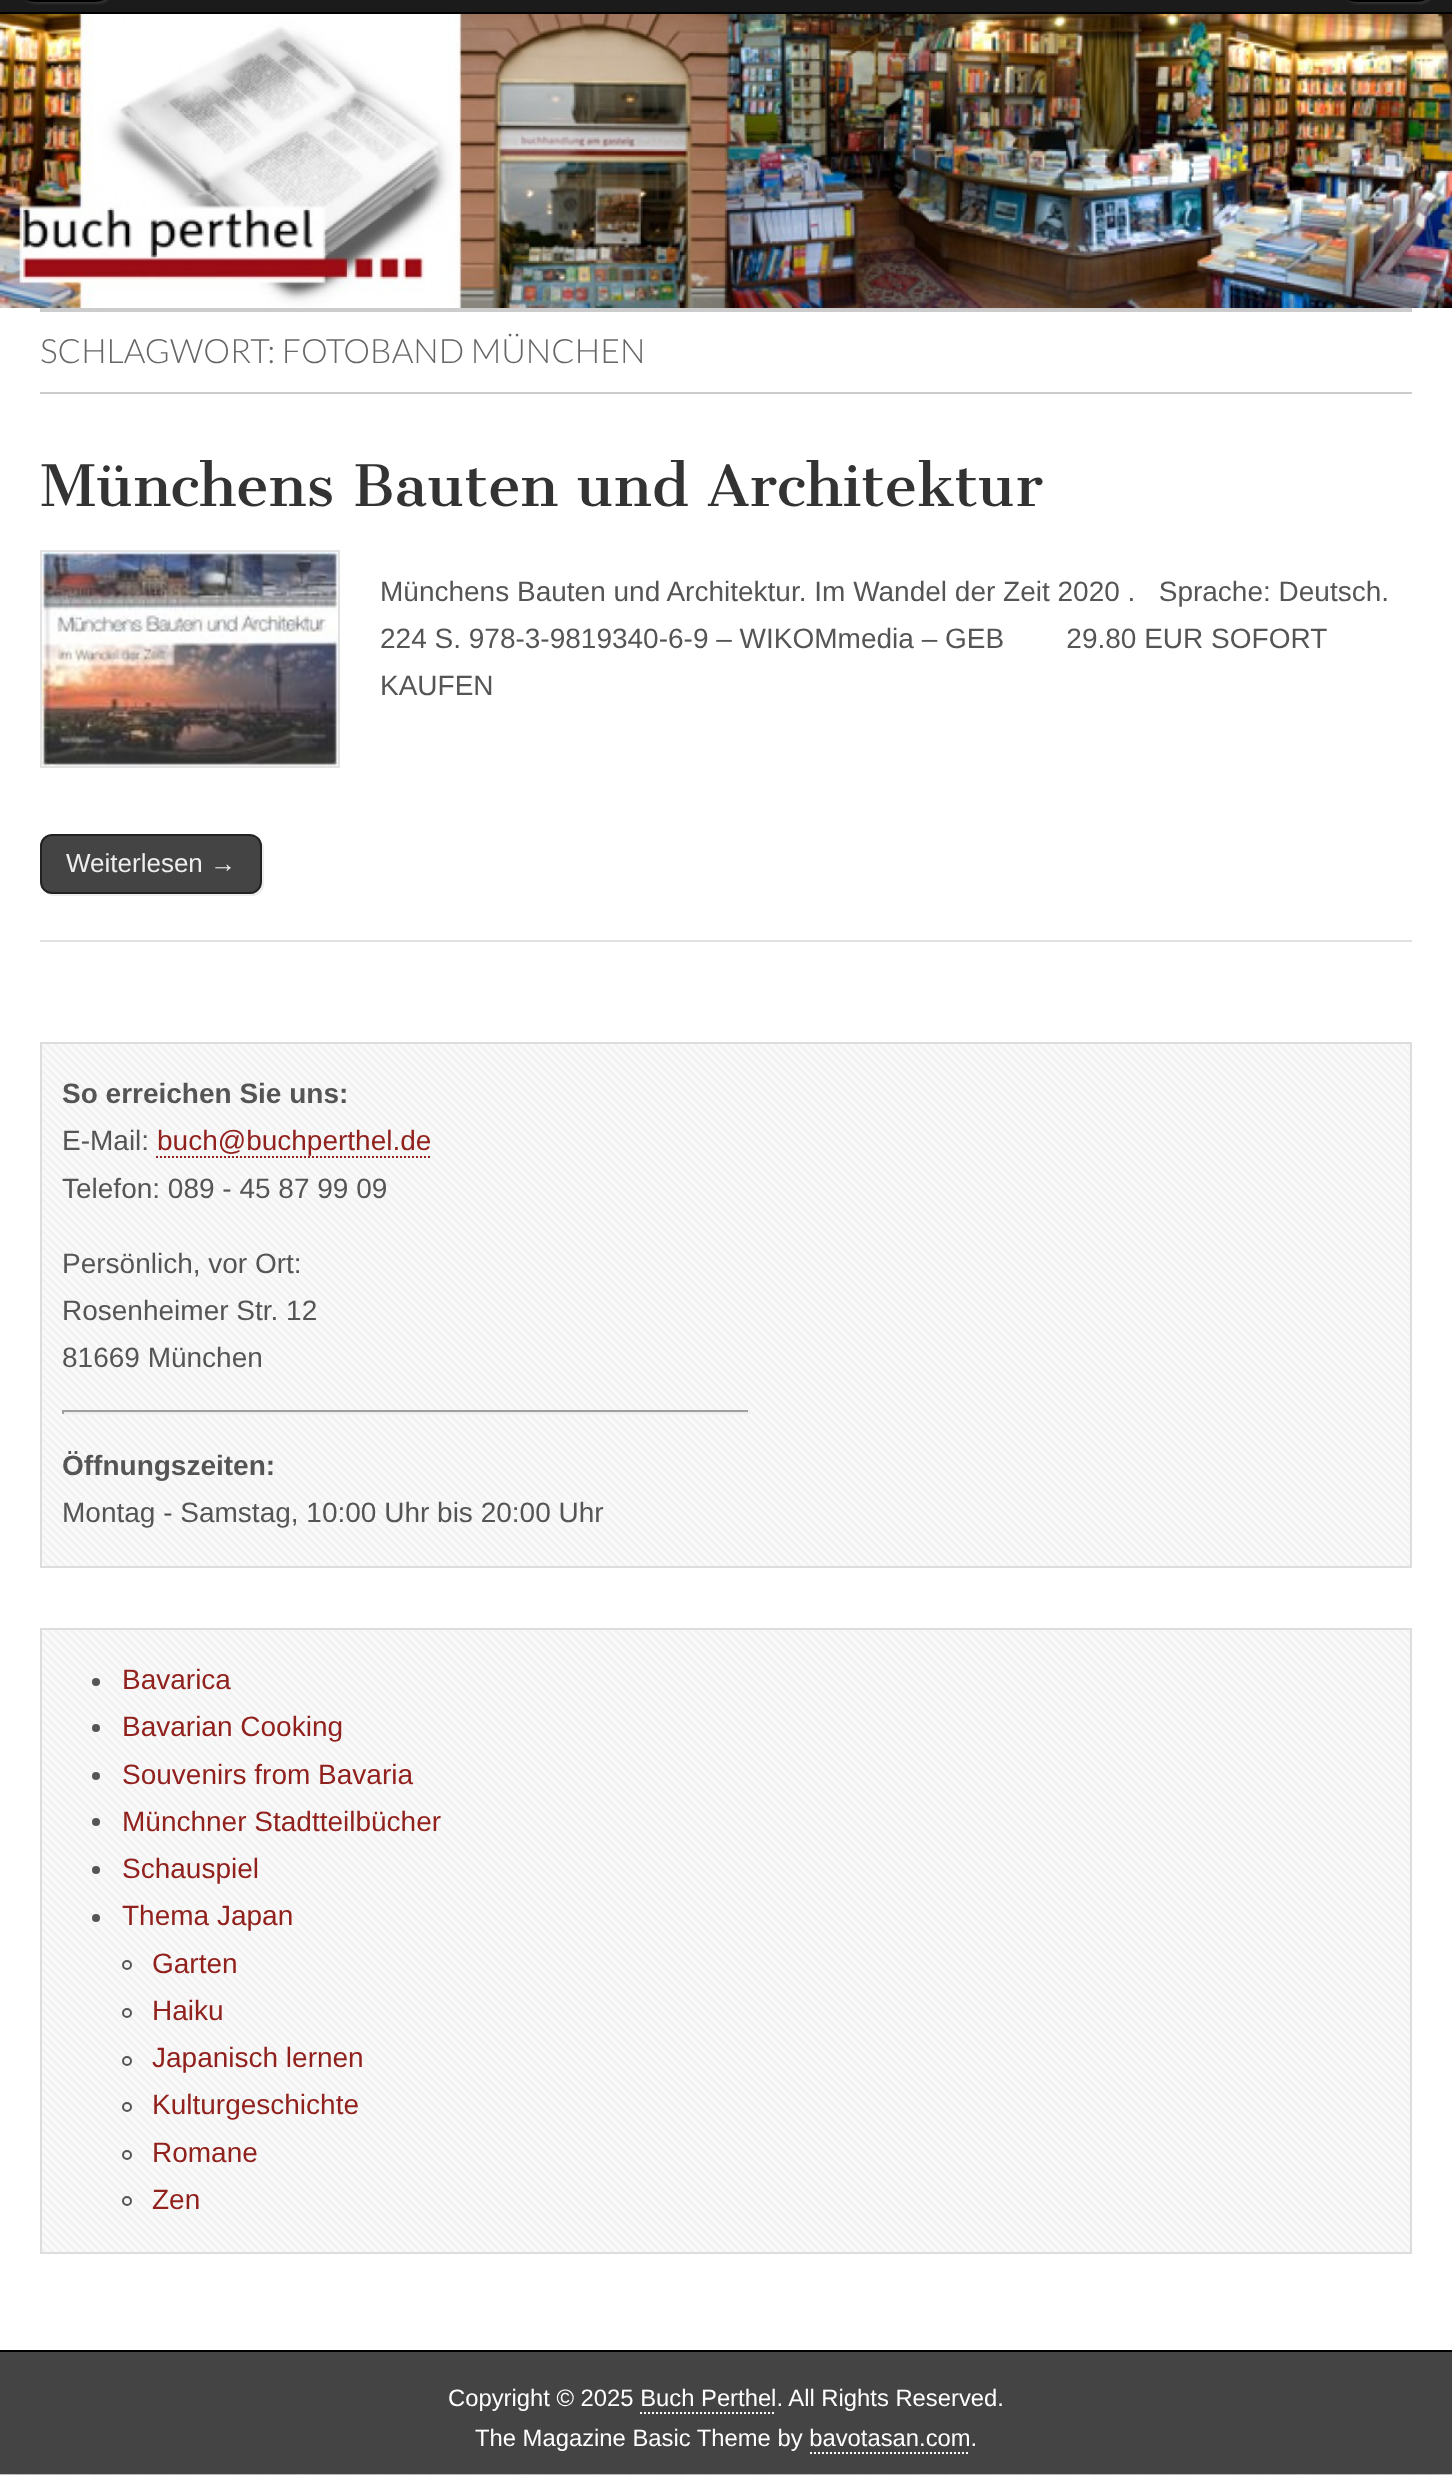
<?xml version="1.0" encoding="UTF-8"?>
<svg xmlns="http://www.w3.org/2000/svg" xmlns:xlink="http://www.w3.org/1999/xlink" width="1452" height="2475">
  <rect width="100%" height="100%" fill="#ffffff" />
  <image x="0" y="2474" width="1452" height="1" xlink:href="image1.png" />
  <rect y="-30" width="1452" height="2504" fill="#000000" fill-opacity="0.2" filter="blur(10px)" />
  <rect y="308" width="1452" height="2042" fill="#ffffff" />
  <rect width="1452" height="12" fill="#1b1b1b" />
  <rect y="12" width="1452" height="2" fill="#000000" />
  <rect x="22" y="-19" width="90" height="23" rx="16" fill="#333333" filter="blur(1px)" />
  <rect x="20" y="-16" width="90" height="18" rx="16" fill="#000000" />
  <rect x="1344" y="-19" width="90" height="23" rx="16" fill="#333333" filter="blur(1px)" />
  <rect x="1342" y="-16" width="90" height="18" rx="16" fill="#000000" />
  <image x="0" y="14" width="1452" height="294" xlink:href="image2.png" />
  <rect x="40" y="308" width="1372" height="4" fill="#cccccc" />
  <rect x="40" y="392" width="1372" height="2" fill="#cccccc" />
  <rect x="40" y="940" width="1372" height="2" fill="#e2e2e2" />
  <rect x="41" y="551" width="298" height="216" fill="none" stroke="#e2e2e2" stroke-width="2" />
  <image x="42" y="552" width="296" height="214" xlink:href="image3.png" />
  <path d="M 45 891 c 2 3 5 5 9 5 h 198 c 7 0 12 -5 12 -12 v -36 c 0 -4 -2 -7 -5 -9 c 2 2 3 4 3 7 v 36 c 0 7 -5 12 -12 12 h -198 c -3 0 -5 -1 -7 -3 z" fill="#eeeeee" />
  <rect x="41" y="835" width="220" height="58" rx="11" fill="#444444" stroke="#222222" stroke-width="2" />
  <image x="42" y="1044" width="1368" height="522" xlink:href="image4.png" />
  <rect x="41" y="1043" width="1370" height="524" fill="none" stroke="#dddddd" stroke-width="2" />
  <path d="M 156 1157 h 276" fill="none" stroke="#91211d" stroke-width="2" stroke-dasharray="2 2" />
  <rect x="62" y="1410" width="688" height="2" fill="#9f9f9f" />
  <rect x="748" y="1410" width="2" height="4" fill="#eeeeee" />
  <rect x="62" y="1412" width="688" height="2" fill="#eeeeee" />
  <rect x="62" y="1410" width="2" height="4" fill="#9f9f9f" />
  <image x="42" y="1630" width="1368" height="622" xlink:href="image5.png" />
  <rect x="41" y="1629" width="1370" height="624" fill="none" stroke="#dddddd" stroke-width="2" />
  <circle cx="96" cy="1682" r="4" fill="#555555" />
  <circle cx="96" cy="1728" r="4" fill="#555555" />
  <circle cx="96" cy="1776" r="4" fill="#555555" />
  <circle cx="96" cy="1822" r="4" fill="#555555" />
  <circle cx="96" cy="1870" r="4" fill="#555555" />
  <circle cx="96" cy="1918" r="4" fill="#555555" />
  <circle cx="127" cy="1965" r="4" fill="none" stroke="#555555" stroke-width="2" />
  <circle cx="127" cy="2013" r="4" fill="none" stroke="#555555" stroke-width="2" />
  <circle cx="127" cy="2061" r="4" fill="none" stroke="#555555" stroke-width="2" />
  <circle cx="127" cy="2107" r="4" fill="none" stroke="#555555" stroke-width="2" />
  <circle cx="127" cy="2155" r="4" fill="none" stroke="#555555" stroke-width="2" />
  <circle cx="127" cy="2201" r="4" fill="none" stroke="#555555" stroke-width="2" />
  <rect y="2352" width="1452" height="122" fill="#444444" />
  <rect y="2350" width="1452" height="2" fill="#000000" />
  <path d="M 640 2413 h 136" fill="none" stroke="#ffffff" stroke-width="2" stroke-dasharray="2 2" />
  <path d="M 810 2453 h 160" fill="none" stroke="#ffffff" stroke-width="2" stroke-dasharray="2 2" />
  <text x="40" y="363" style="font-family: Lato; font-size: 33.6px; font-weight: 300; fill: #666666">SCHLAGWORT: FOTOBAND MÜNCHEN</text>
  <text x="40" y="506" style="font-family: Cantata One; font-size: 56px; fill: #333333">Münchens Bauten und Architektur</text>
  <text x="380" y="601" style="font-family: Liberation Sans; font-size: 28px; fill: #555555" xml:space="preserve">Münchens Bauten und Architektur. Im Wandel der Zeit 2020 .   Sprache: Deutsch.</text>
  <text x="380" y="648" style="font-family: Liberation Sans; font-size: 28px; fill: #555555" xml:space="preserve">224 S. 978-3-9819340-6-9 – WIKOMmedia – GEB        29.80 EUR SOFORT</text>
  <text x="380" y="695" style="font-family: Liberation Sans; font-size: 28px; fill: #555555">KAUFEN</text>
  <text x="66" y="872" style="font-family: Liberation Sans; font-size: 26px; fill: #eeeeee">Weiterlesen →</text>
  <text x="62" y="1103" style="font-family: Liberation Sans; font-size: 28px; font-weight: bold; fill: #555555">So erreichen Sie uns:</text>
  <text x="62" y="1150" style="font-family: Liberation Sans; font-size: 28px; fill: #555555">E-Mail:</text>
  <text x="157" y="1150" style="font-family: Liberation Sans; font-size: 28px; fill: #91211d">buch@buchperthel.de</text>
  <text x="62" y="1198" style="font-family: Liberation Sans; font-size: 28px; fill: #555555">Telefon: 089 - 45 87 99 09</text>
  <text x="62" y="1273" style="font-family: Liberation Sans; font-size: 28px; fill: #555555">Persönlich, vor Ort:</text>
  <text x="62" y="1320" style="font-family: Liberation Sans; font-size: 28px; fill: #555555">Rosenheimer Str. 12</text>
  <text x="62" y="1367" style="font-family: Liberation Sans; font-size: 28px; fill: #555555">81669 München</text>
  <text x="62" y="1475" style="font-family: Liberation Sans; font-size: 28px; font-weight: bold; fill: #555555">Öffnungszeiten:</text>
  <text x="62" y="1522" style="font-family: Liberation Sans; font-size: 28px; fill: #555555">Montag - Samstag, 10:00 Uhr bis 20:00 Uhr</text>
  <text x="122" y="1689" style="font-family: Liberation Sans; font-size: 28px; fill: #91211d">Bavarica</text>
  <text x="122" y="1736" style="font-family: Liberation Sans; font-size: 28px; fill: #91211d">Bavarian Cooking</text>
  <text x="122" y="1784" style="font-family: Liberation Sans; font-size: 28px; fill: #91211d">Souvenirs from Bavaria</text>
  <text x="122" y="1831" style="font-family: Liberation Sans; font-size: 28px; fill: #91211d">Münchner Stadtteilbücher</text>
  <text x="122" y="1878" style="font-family: Liberation Sans; font-size: 28px; fill: #91211d">Schauspiel</text>
  <text x="122" y="1925" style="font-family: Liberation Sans; font-size: 28px; fill: #91211d">Thema Japan</text>
  <text x="152" y="1973" style="font-family: Liberation Sans; font-size: 28px; fill: #91211d">Garten</text>
  <text x="152" y="2020" style="font-family: Liberation Sans; font-size: 28px; fill: #91211d">Haiku</text>
  <text x="152" y="2067" style="font-family: Liberation Sans; font-size: 28px; fill: #91211d">Japanisch lernen</text>
  <text x="152" y="2114" style="font-family: Liberation Sans; font-size: 28px; fill: #91211d">Kulturgeschichte</text>
  <text x="152" y="2162" style="font-family: Liberation Sans; font-size: 28px; fill: #91211d">Romane</text>
  <text x="152" y="2209" style="font-family: Liberation Sans; font-size: 28px; fill: #91211d">Zen</text>
  <text x="448" y="2406" style="font-family: Liberation Sans; font-size: 23.8px; fill: #ffffff">Copyright © 2025 Buch Perthel. All Rights Reserved.</text>
  <text x="475" y="2446" style="font-family: Liberation Sans; font-size: 23.8px; fill: #ffffff">The Magazine Basic Theme by bavotasan.com.</text>
</svg>
